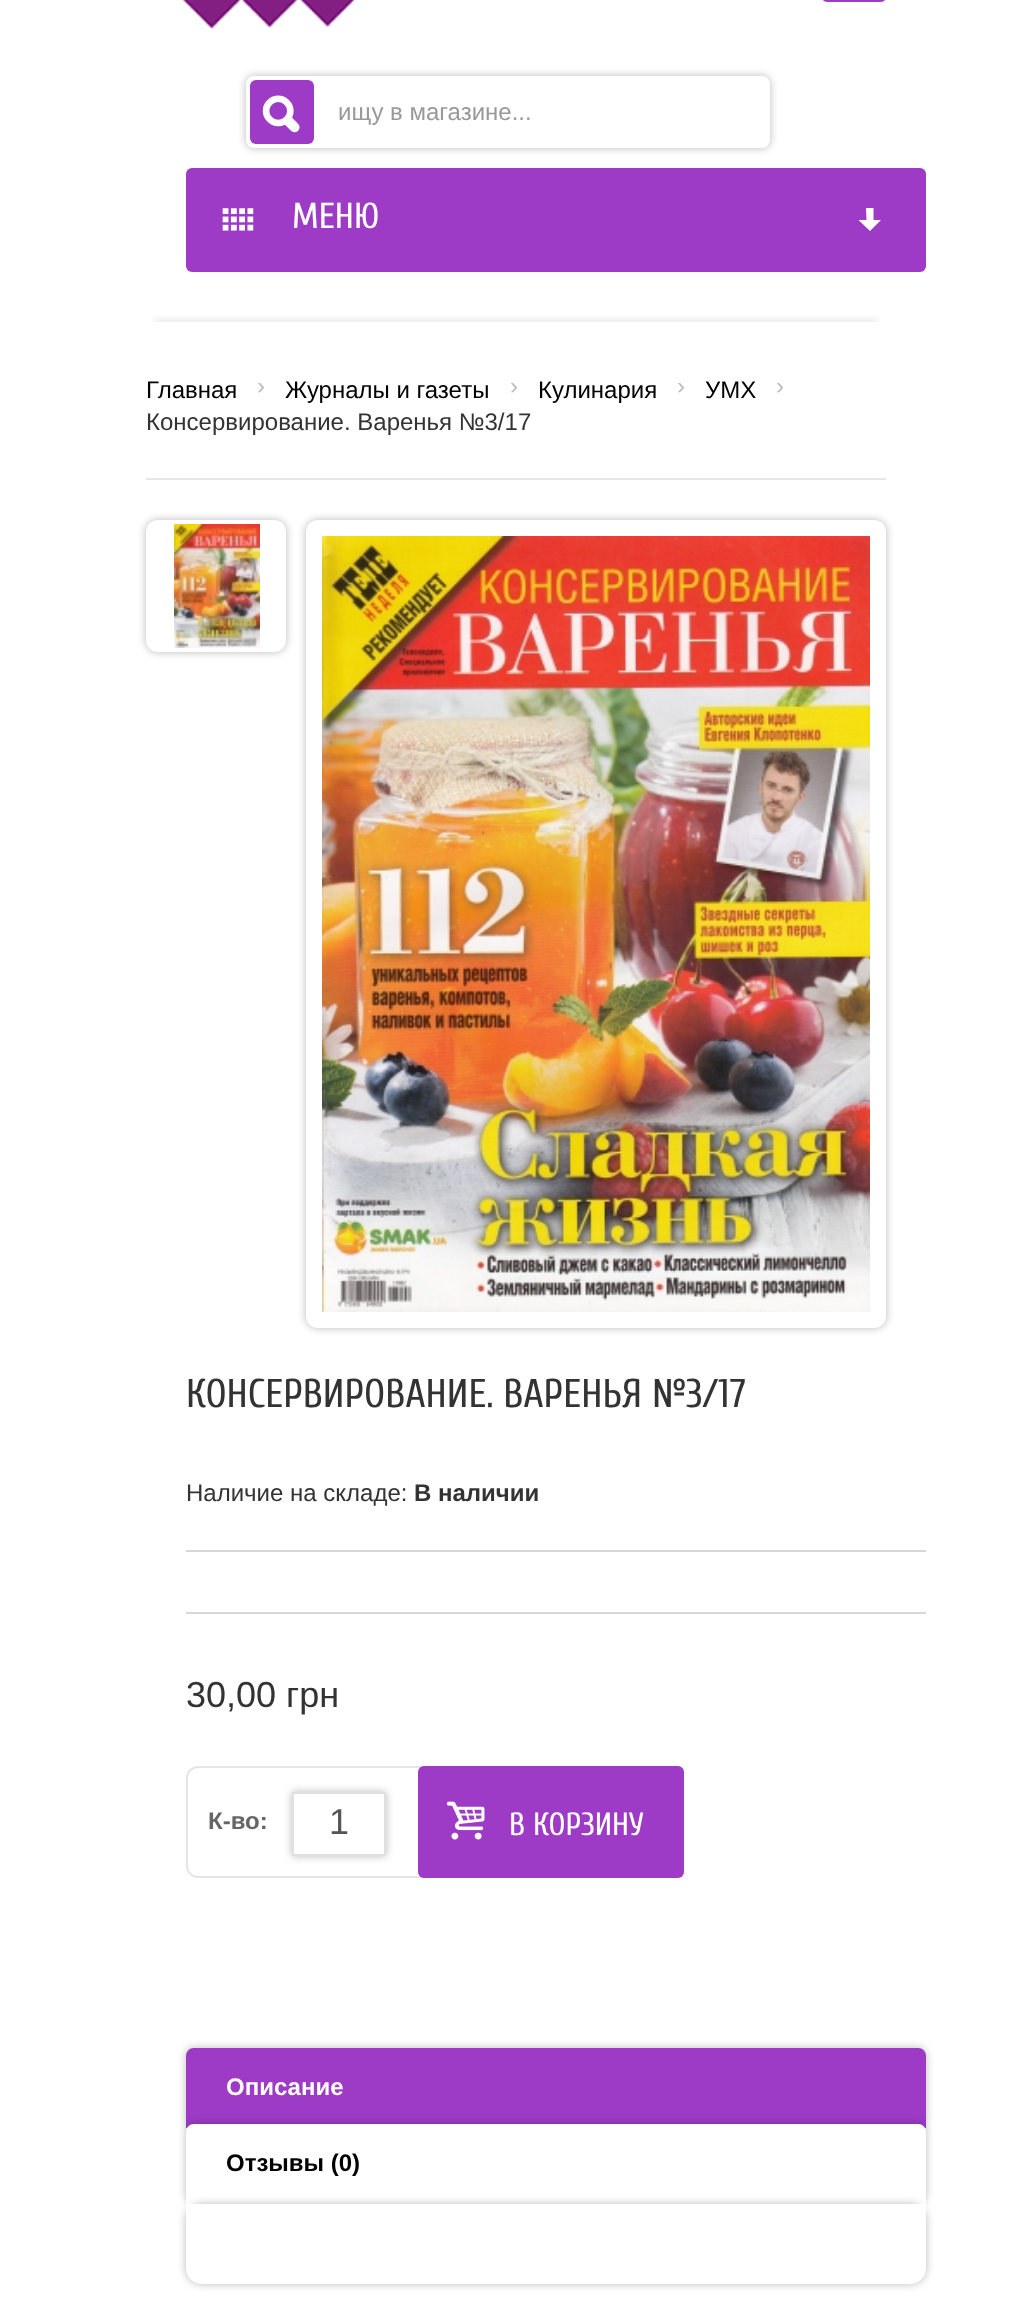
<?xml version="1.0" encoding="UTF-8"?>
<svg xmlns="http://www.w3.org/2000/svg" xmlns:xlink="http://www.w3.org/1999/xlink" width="1032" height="2310">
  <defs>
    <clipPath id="clip1"><rect x="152" y="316" width="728" height="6" /></clipPath>
    <clipPath id="clip2"><path d="M 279 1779 h 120 v 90 h -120 z m 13 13 h 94 v 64 h -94 z" clip-rule="evenodd" /></clipPath>
  </defs>
  <rect width="100%" height="100%" fill="#ffffff" />
  <rect x="822" y="-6" width="64" height="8" rx="6" fill="#9d3bc6" />
  <image x="182" y="0" width="173" height="29" xlink:href="image1.png" />
  <rect x="246" y="76" width="524" height="72" rx="8" fill="#000000" fill-opacity="0.27" filter="blur(4px)" />
  <rect x="248" y="78" width="520" height="68" rx="6" fill="#ffffff" stroke="#ffffff" stroke-width="4" />
  <rect x="250" y="80" width="64" height="64" rx="6" fill="#9d3bc6" />
  <image x="262" y="95" width="38" height="38" xlink:href="image2.png" />
  <rect x="186" y="168" width="740" height="104" rx="6" fill="#9d3bc6" />
  <image x="222" y="208" width="32" height="23" xlink:href="image3.png" />
  <path d="M 873.5 220 h 7.5 l -11 11 l -11.5 -11 h 8 l -0.5 -12 h 7.5 z" fill="#ffffff" />
  <g clip-path="url(#clip1)">
    <rect x="154" y="320" width="724" height="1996" fill="#000000" fill-opacity="0.1" filter="blur(5px)" />
  </g>
  <rect x="146" y="478" width="740" height="2" fill="#e6e6e6" />
  <rect x="146" y="520" width="140" height="132" rx="12" fill="#000000" fill-opacity="0.27" filter="blur(4px)" />
  <rect x="146" y="520" width="140" height="132" rx="12" fill="#ffffff" />
  <image x="174" y="524" width="86" height="124" xlink:href="image4.png" />
  <rect x="306" y="520" width="580" height="808" rx="12" fill="#000000" fill-opacity="0.27" filter="blur(4px)" />
  <rect x="306" y="520" width="580" height="808" rx="12" fill="#ffffff" />
  <image x="322" y="536" width="548" height="776" xlink:href="image5.png" />
  <rect x="186" y="1550" width="740" height="2" fill="#d7d7d7" />
  <rect x="186" y="1612" width="740" height="2" fill="#d7d7d7" />
  <rect x="187" y="1767" width="250" height="110" rx="11" fill="none" stroke="#e6e6e6" stroke-width="2" />
  <g clip-path="url(#clip2)">
    <rect x="292" y="1792" width="94" height="64" fill="#000000" fill-opacity="0.27" filter="blur(4px)" />
  </g>
  <rect x="293" y="1793" width="92" height="62" fill="none" stroke="#e0e0e0" stroke-width="2" />
  <rect x="418" y="1766" width="266" height="112" rx="6" fill="#9d3bc6" />
  <image x="446" y="1801" width="39" height="39" xlink:href="image6.png" />
  <rect x="186" y="2048" width="740" height="80" rx="8" fill="#000000" fill-opacity="0.27" filter="blur(4px)" />
  <path d="M 194 2048 h 724 c 4.5 0 8 3.5 8 8 v 72 h -740 v -72 c 0 -4.5 3.5 -8 8 -8 z" fill="#9d3bc6" />
  <rect x="186" y="2124" width="740" height="80" rx="8" fill="#000000" fill-opacity="0.27" filter="blur(4px)" />
  <path d="M 194 2124 h 724 c 4.5 0 8 3.5 8 8 v 72 h -740 v -72 c 0 -4.5 3.5 -8 8 -8 z" fill="#ffffff" />
  <rect x="186" y="2204" width="740" height="80" rx="16" fill="#000000" fill-opacity="0.27" filter="blur(4px)" />
  <path d="M 186 2204 h 740 v 64 c 0 9 -7 16 -16 16 h -708 c -9 0 -16 -7 -16 -16 z" fill="#ffffff" />
  <text x="338" y="120" style="font-family: Liberation Sans; font-size: 24px; fill: #999999">ищу в магазине...</text>
  <text x="292" y="228" style="font-family: Cuprum; font-size: 36px; fill: #ffffff">МЕНЮ</text>
  <text x="146" y="398" style="font-family: Liberation Sans; font-size: 24px; fill: #000000">Главная</text>
  <text x="257" y="394" style="font-family: Liberation Sans; font-size: 24px; fill: #bababa">›</text>
  <text x="285" y="398" style="font-family: Liberation Sans; font-size: 24px; fill: #000000">Журналы и газеты</text>
  <text x="510" y="394" style="font-family: Liberation Sans; font-size: 24px; fill: #bababa">›</text>
  <text x="538" y="398" style="font-family: Liberation Sans; font-size: 24px; fill: #000000">Кулинария</text>
  <text x="677" y="394" style="font-family: Liberation Sans; font-size: 24px; fill: #bababa">›</text>
  <text x="705" y="398" style="font-family: Liberation Sans; font-size: 24px; fill: #000000">УМХ</text>
  <text x="776" y="394" style="font-family: Liberation Sans; font-size: 24px; fill: #bababa">›</text>
  <text x="146" y="430" style="font-family: Liberation Sans; font-size: 24px; fill: #333333">Консервирование. Варенья №3/17</text>
  <text x="186" y="1407" style="font-family: Cuprum; font-size: 40px; fill: #333333">КОНСЕРВИРОВАНИЕ. ВАРЕНЬЯ №3/17</text>
  <text x="186" y="1501" style="font-family: Liberation Sans; font-size: 24px; fill: #333333">Наличие на складе:</text>
  <text x="414" y="1501" style="font-family: Liberation Sans; font-size: 24px; font-weight: bold; fill: #333333">В наличии</text>
  <text x="186" y="1707" style="font-family: Liberation Sans; font-size: 36px; fill: #333333">30,00 грн</text>
  <text x="208" y="1829" style="font-family: Liberation Sans; font-size: 24px; font-weight: bold; fill: #666666">К-во:</text>
  <text x="329" y="1834" style="font-family: Liberation Sans; font-size: 36px; fill: #555555">1</text>
  <text x="509" y="1835" style="font-family: Cuprum; font-size: 32px; fill: #ffffff">В КОРЗИНУ</text>
  <text x="226" y="2095" style="font-family: Liberation Sans; font-size: 24px; font-weight: bold; fill: #ffffff">Описание</text>
  <text x="226" y="2171" style="font-family: Liberation Sans; font-size: 24px; font-weight: bold; fill: #000000">Отзывы (0)</text>
</svg>
